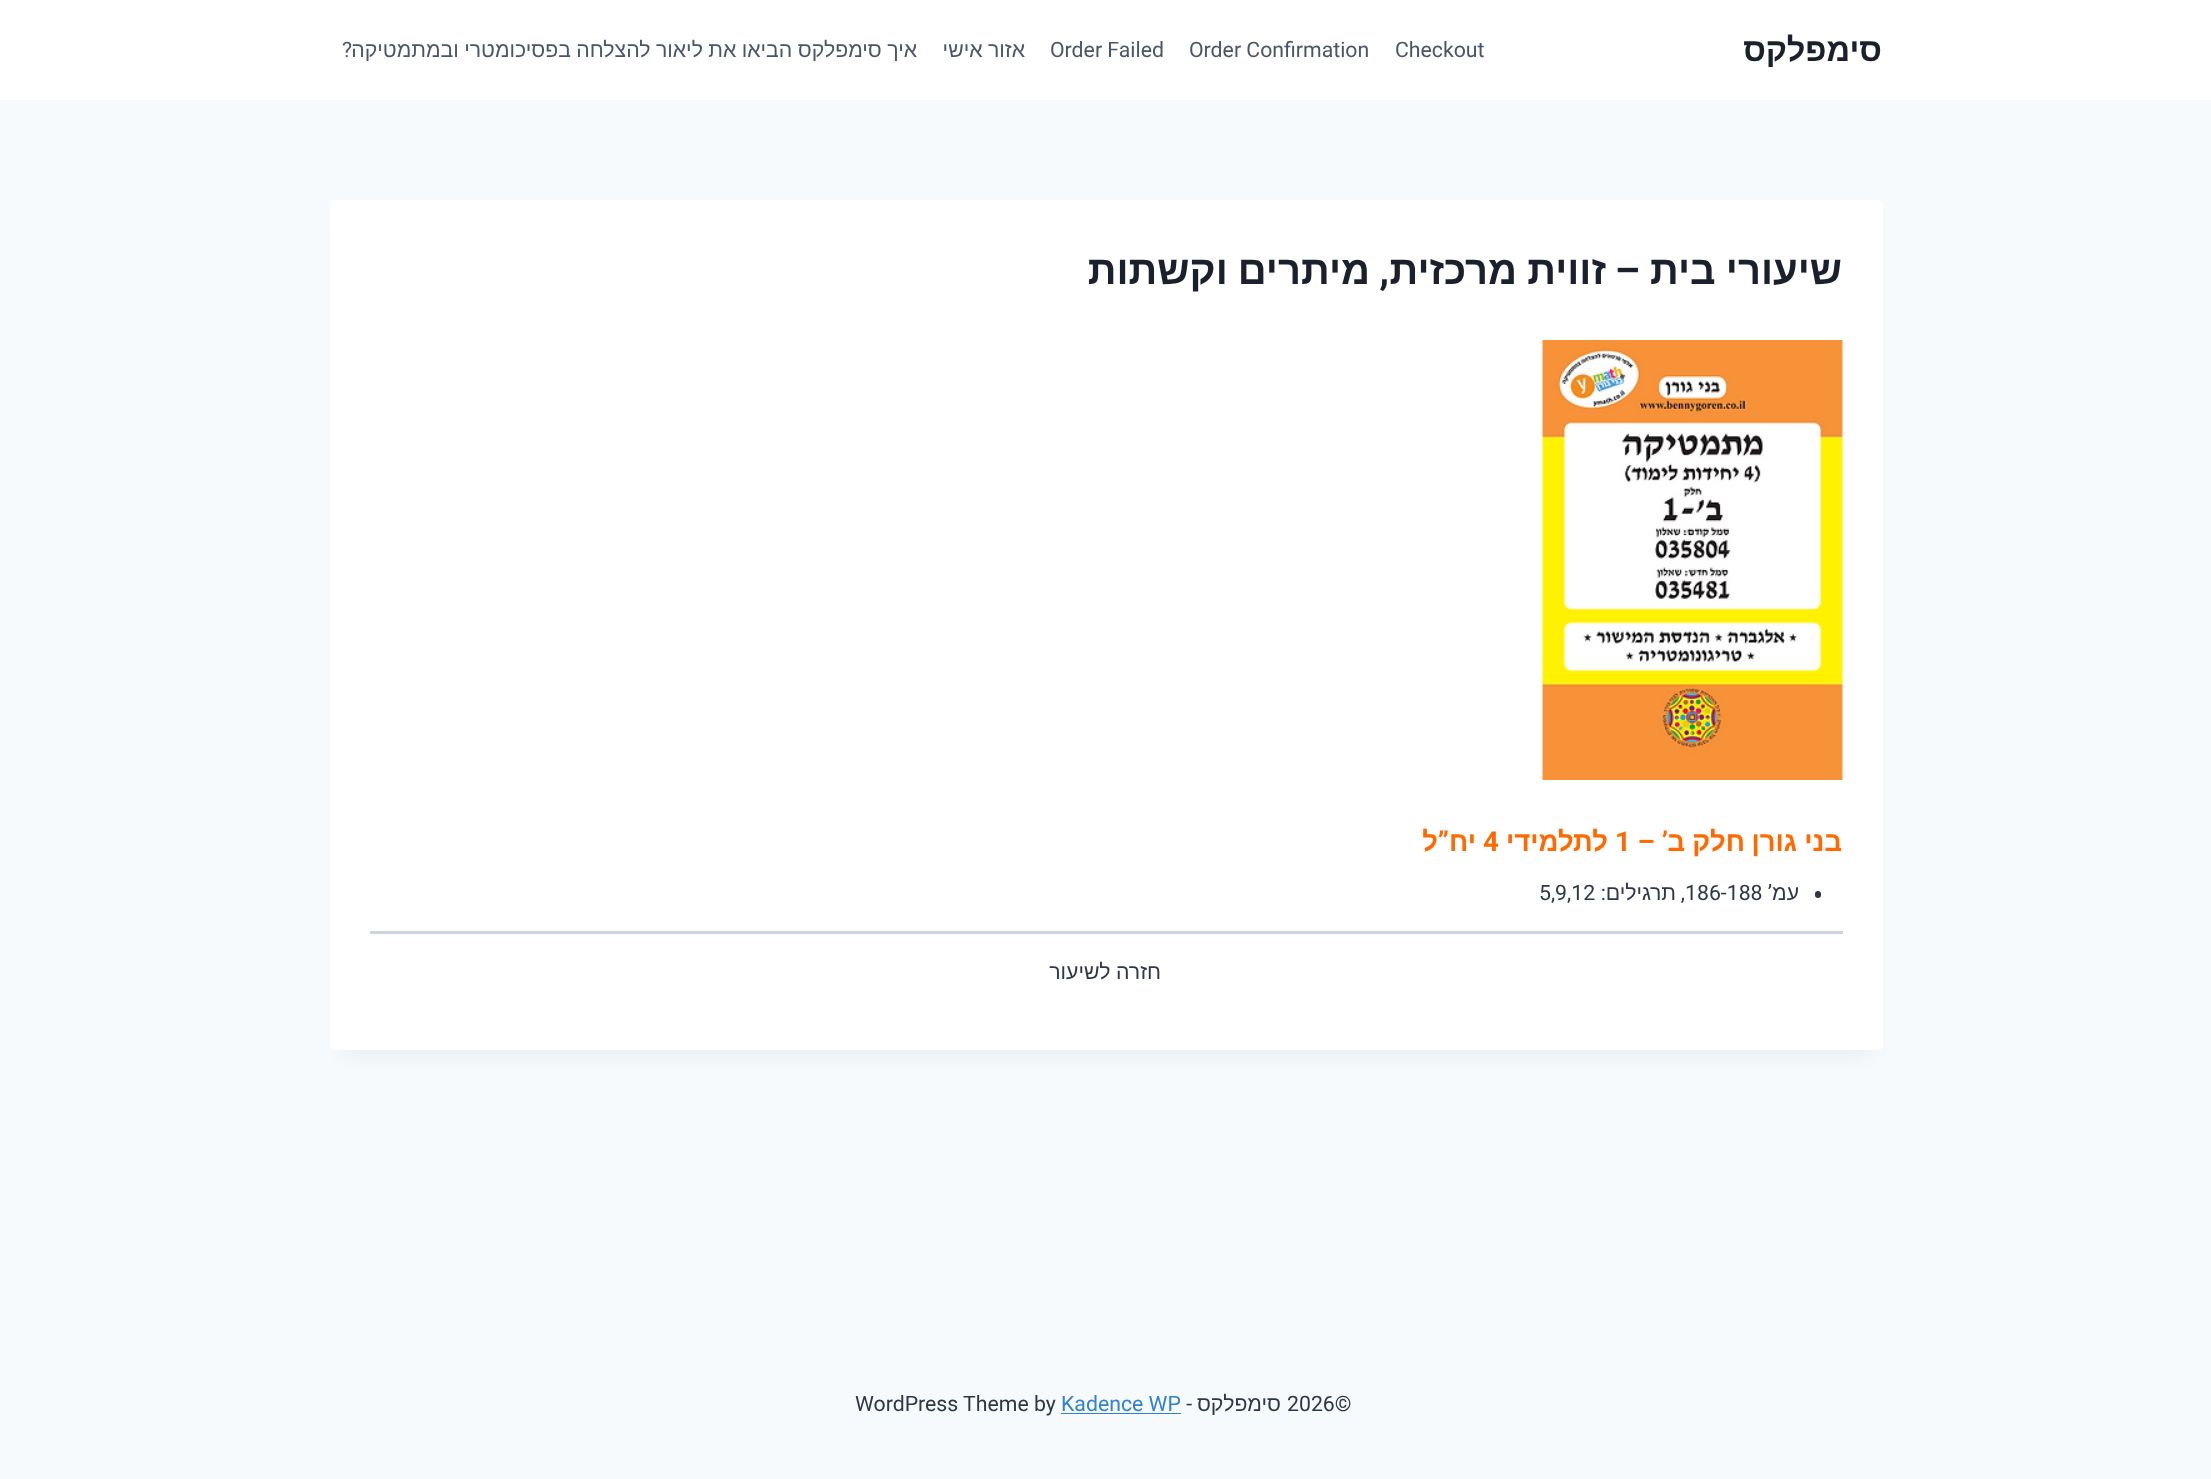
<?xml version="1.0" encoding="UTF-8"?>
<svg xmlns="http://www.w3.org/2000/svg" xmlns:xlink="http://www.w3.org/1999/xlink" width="2211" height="1479">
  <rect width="100%" height="100%" fill="#f7fafc" />
  <rect width="2211" height="100" fill="#ffffff" />
  <rect x="343" y="231" width="1527" height="825" fill="#000000" fill-opacity="0.05" filter="blur(9.5px)" />
  <rect x="330" y="200" width="1553" height="850" rx="5" fill="#ffffff" />
  <image x="1542" y="340" width="301" height="440" xlink:href="image1.png" />
  <rect x="1815" y="891" width="6" height="7" rx="3" fill="#2d3748" />
  <rect x="370" y="931" width="1473" height="3" fill="#cbd5e0" />
  <rect x="1061" y="1413" width="120" height="1" fill="#3182ce" />
  <text x="1882" y="61" style="font-family: Liberation Sans; font-size: 32.5px; font-weight: bold; direction: rtl; fill: #1a202c">סימפלקס</text>
  <text x="1395" y="57" style="font-family: Roboto; font-size: 21.25px; fill: #4a5568">Checkout</text>
  <text x="1189" y="57" style="font-family: Roboto; font-size: 21.25px; fill: #4a5568">Order Confirmation</text>
  <text x="1050" y="57" style="font-family: Roboto; font-size: 21.25px; fill: #4a5568">Order Failed</text>
  <text x="1025" y="57" word-spacing="-0.5" style="font-family: Liberation Sans; font-size: 21.25px; direction: rtl; fill: #4a5568">אזור אישי</text>
  <text x="917" y="57" word-spacing="-0.5" style="font-family: Liberation Sans; font-size: 21.25px; direction: rtl; fill: #4a5568">איך סימפלקס הביאו את ליאור להצלחה בפסיכומטרי ובמתמטיקה</text>
  <text x="352" y="57" style="font-family: Roboto; font-size: 21.25px; direction: rtl; fill: #4a5568">?</text>
  <text x="1842" y="284" word-spacing="-1" style="font-family: Liberation Sans; font-size: 40px; font-weight: bold; direction: rtl; fill: #1a202c">שיעורי בית</text>
  <text x="1640" y="284" style="font-family: Roboto; font-size: 40px; font-weight: bold; direction: rtl; fill: #1a202c">–</text>
  <text x="1606" y="284" word-spacing="-1" style="font-family: Liberation Sans; font-size: 40px; font-weight: bold; direction: rtl; fill: #1a202c">זווית מרכזית</text>
  <text x="1370" y="284" word-spacing="-1" style="font-family: Liberation Sans; font-size: 40px; font-weight: bold; direction: rtl; fill: #1a202c">מיתרים וקשתות</text>
  <text x="1389" y="284" style="font-family: Roboto; font-size: 40px; font-weight: bold; direction: rtl; fill: #1a202c">,</text>
  <text x="1842" y="851" style="font-family: Liberation Sans; font-size: 27.5px; font-weight: bold; direction: rtl; fill: #ff6900">בני</text>
  <text x="1797" y="851" style="font-family: Liberation Sans; font-size: 27.5px; font-weight: bold; direction: rtl; fill: #ff6900">גורן</text>
  <text x="1745" y="851" style="font-family: Liberation Sans; font-size: 27.5px; font-weight: bold; direction: rtl; fill: #ff6900">חלק</text>
  <text x="1685" y="851" style="font-family: Liberation Sans; font-size: 27.5px; font-weight: bold; direction: rtl; fill: #ff6900">ב</text>
  <text x="1668" y="851" style="font-family: Roboto; font-size: 27.5px; font-weight: bold; direction: rtl; fill: #ff6900">’ –</text>
  <text x="1615" y="851" style="font-family: Roboto; font-size: 27.5px; font-weight: bold; fill: #ff6900">1</text>
  <text x="1608" y="851" style="font-family: Liberation Sans; font-size: 27.5px; font-weight: bold; direction: rtl; fill: #ff6900">לתלמידי</text>
  <text x="1483" y="851" style="font-family: Roboto; font-size: 27.5px; font-weight: bold; fill: #ff6900">4</text>
  <text x="1476" y="851" style="font-family: Liberation Sans; font-size: 27.5px; font-weight: bold; direction: rtl; fill: #ff6900">יח</text>
  <text x="1449" y="851" style="font-family: Roboto; font-size: 27.5px; font-weight: bold; direction: rtl; fill: #ff6900">”</text>
  <text x="1438" y="851" style="font-family: Liberation Sans; font-size: 27.5px; font-weight: bold; direction: rtl; fill: #ff6900">ל</text>
  <text x="1799" y="900" style="font-family: Liberation Sans; font-size: 21.25px; direction: rtl; fill: #2d3748">עמ</text>
  <text x="1772" y="900" style="font-family: Roboto; font-size: 21.25px; direction: rtl; fill: #2d3748">’</text>
  <text x="1685" y="900" style="font-family: Roboto; font-size: 21.25px; fill: #2d3748">186-188</text>
  <text x="1676" y="900" style="font-family: Liberation Sans; font-size: 21.25px; direction: rtl; fill: #2d3748">תרגילים</text>
  <text x="1606" y="900" style="font-family: Roboto; font-size: 21.25px; direction: rtl; fill: #2d3748">:</text>
  <text x="1539" y="900" style="font-family: Roboto; font-size: 21.25px; fill: #2d3748">5,9,12</text>
  <text x="1685" y="900" style="font-family: Roboto; font-size: 21.25px; direction: rtl; fill: #2d3748">,</text>
  <text x="1161" y="979" word-spacing="-0.5" style="font-family: Liberation Sans; font-size: 21.25px; direction: rtl; fill: #2d3748">חזרה לשיעור</text>
  <text x="1287" y="1411" style="font-family: Roboto; font-size: 21.25px; fill: #2d3748">2026©</text>
  <text x="1281" y="1411" style="font-family: Liberation Sans; font-size: 21.25px; direction: rtl; fill: #2d3748">סימפלקס</text>
  <text x="1192" y="1411" style="font-family: Roboto; font-size: 21.25px; direction: rtl; fill: #2d3748">-</text>
  <text x="1061" y="1411" style="font-family: Roboto; font-size: 21.25px; fill: #3182ce">Kadence WP</text>
  <text x="855" y="1411" style="font-family: Roboto; font-size: 21.25px; fill: #2d3748">WordPress Theme by</text>
</svg>
